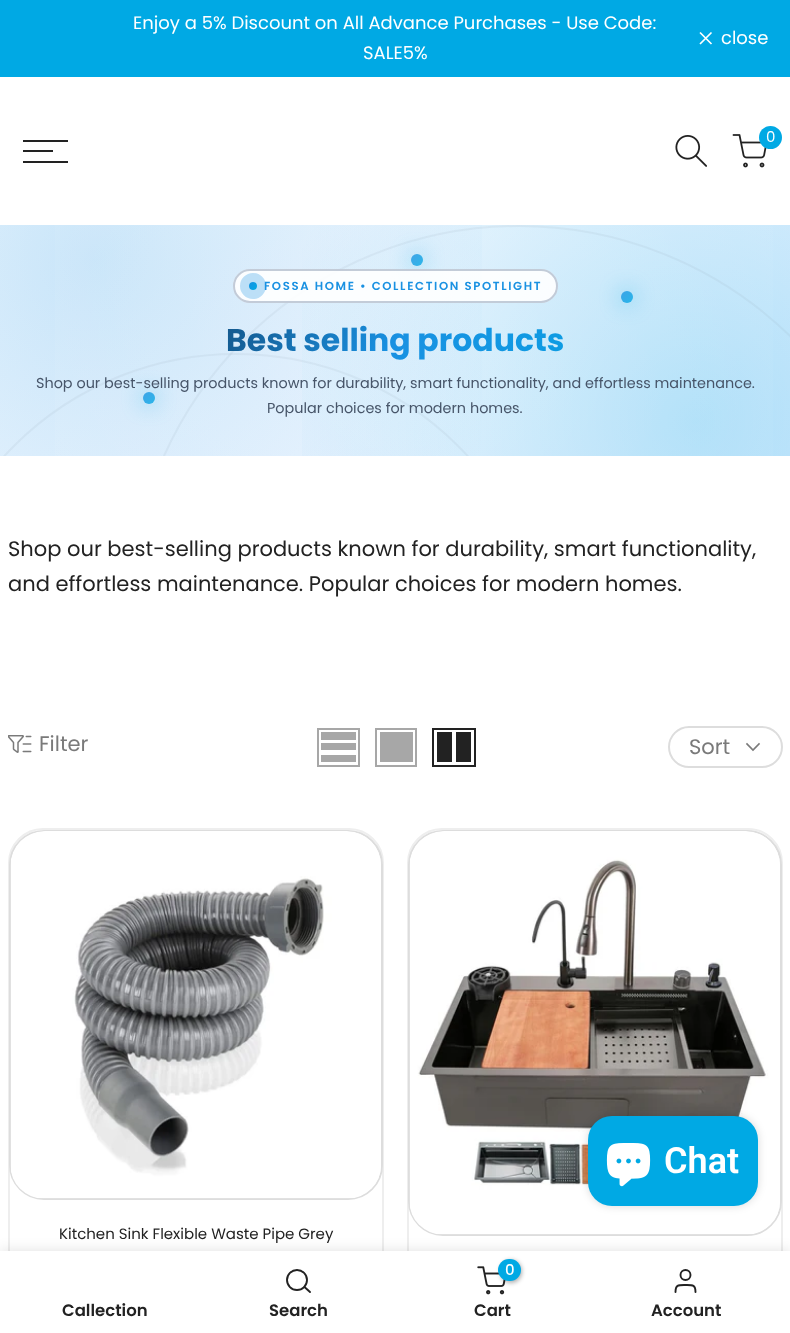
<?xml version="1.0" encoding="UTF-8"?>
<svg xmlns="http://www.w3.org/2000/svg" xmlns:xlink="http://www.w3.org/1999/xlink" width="790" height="1333">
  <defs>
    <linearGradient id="g1" gradientUnits="userSpaceOnUse" x1="140" y1="85" x2="651" y2="596"><stop offset="0" stop-color="#f6fbff" /><stop offset="1" stop-color="#e3efff" /></linearGradient>
    <radialGradient id="g2" gradientUnits="userSpaceOnUse" cx="696" cy="421" r="723"><stop offset="0" stop-color="#00a9e4" stop-opacity="0.24" /><stop offset="0.6" stop-color="#00a9e4" stop-opacity="0" /></radialGradient>
    <radialGradient id="g3" gradientUnits="userSpaceOnUse" cx="95" cy="260" r="723"><stop offset="0" stop-color="#1991e2" stop-opacity="0.2" /><stop offset="0.6" stop-color="#1991e2" stop-opacity="0" /></radialGradient>
    <radialGradient id="g4" gradientUnits="userSpaceOnUse" cx="395" cy="341" r="741"><stop offset="0" stop-color="#ffffff" stop-opacity="0.17" /><stop offset="0.65" stop-color="#ffffff" stop-opacity="0" /></radialGradient>
    <clipPath id="clip1"><rect y="225" width="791" height="231" /></clipPath>
    <linearGradient id="g5" gradientUnits="userSpaceOnUse" x1="103" y1="171" x2="688" y2="509"><stop offset="0" stop-color="#0f172a" /><stop offset="0.5" stop-color="#1991e2" /><stop offset="1" stop-color="#00a9e4" /></linearGradient>
    <linearGradient id="g6" gradientUnits="userSpaceOnUse" x1="411" y1="254" x2="423" y2="266"><stop offset="0" stop-color="#40a4e7" /><stop offset="1" stop-color="#2cb7e9" /></linearGradient>
    <linearGradient id="g7" gradientUnits="userSpaceOnUse" x1="621" y1="291" x2="633" y2="303"><stop offset="0" stop-color="#3ca3e7" /><stop offset="1" stop-color="#28b6e9" /></linearGradient>
    <linearGradient id="g8" gradientUnits="userSpaceOnUse" x1="249" y1="282" x2="257" y2="290"><stop offset="0" stop-color="#1991e2" /><stop offset="1" stop-color="#00a9e4" /></linearGradient>
    <linearGradient id="g9" gradientUnits="userSpaceOnUse" x1="143" y1="392" x2="155" y2="404"><stop offset="0" stop-color="#3fa3e7" /><stop offset="1" stop-color="#2bb6e9" /></linearGradient>
  </defs>
  <rect width="100%" height="100%" fill="#ffffff" />
  <rect width="790" height="77" fill="#00a9e4" />
  <path d="M 711.5 32.5 l -11.5 11.5 m 11.5 0 l -11.5 -11.5" fill="none" stroke="#ffffff" stroke-width="1.7" />
  <image x="675" y="135" width="32" height="32" xlink:href="image1.png" />
  <image x="732" y="134" width="35" height="34" xlink:href="image2.png" />
  <circle cx="770.5" cy="137.5" r="11.5" fill="#00a9e4" />
  <rect x="23" y="140" width="45" height="2" fill="#222222" />
  <rect x="23" y="150" width="30" height="2" fill="#222222" />
  <rect x="23" y="161" width="45" height="2" fill="#222222" />
  <rect y="225" width="790" height="231" fill="url(#g1)" />
  <rect x="302" y="225" width="488" height="231" fill="url(#g2)" />
  <rect y="225" width="482" height="231" fill="url(#g3)" />
  <rect x="55" y="225" width="718" height="231" fill="url(#g4)" />
  <g clip-path="url(#clip1)">
    <circle cx="236" cy="668" r="314" fill="none" stroke="#94a3b8" stroke-opacity="0.12" stroke-width="2" />
    <circle cx="519" cy="615" r="389" fill="none" stroke="#94a3b8" stroke-opacity="0.12" stroke-width="2" />
  </g>
  <rect x="411" y="254" width="12" height="12" rx="6" fill="#00a9e4" fill-opacity="0.64" filter="blur(10.5px)" />
  <circle cx="417" cy="260" r="6" fill="url(#g6)" />
  <rect x="621" y="291" width="12" height="12" rx="6" fill="#00a9e4" fill-opacity="0.64" filter="blur(10.5px)" />
  <circle cx="627" cy="297" r="6" fill="url(#g7)" />
  <rect x="233" y="269" width="325" height="34" rx="17" fill="#ffffff" fill-opacity="0.9" />
  <rect x="234" y="270" width="323" height="32" rx="16" fill="none" stroke="#94a3b8" stroke-opacity="0.55" stroke-width="2" />
  <circle cx="253" cy="286" r="8.5" fill="none" stroke="#bcdff7" stroke-width="9" />
  <circle cx="253" cy="286" r="4" fill="url(#g8)" />
  <rect x="143" y="392" width="12" height="12" rx="6" fill="#00a9e4" fill-opacity="0.64" filter="blur(10.5px)" />
  <circle cx="149" cy="398" r="6" fill="url(#g9)" />
  <image x="8" y="735" width="24" height="18" xlink:href="image3.png" />
  <rect x="318" y="729" width="41" height="37" fill="none" stroke="#a7a7a7" stroke-width="2" />
  <rect x="321" y="755" width="35" height="7" fill="#a7a7a7" />
  <rect x="321" y="743" width="35" height="7" fill="#a7a7a7" />
  <rect x="321" y="732" width="35" height="8" fill="#a7a7a7" />
  <rect x="376" y="729" width="40" height="37" fill="none" stroke="#a7a7a7" stroke-width="2" />
  <rect x="380" y="732" width="33" height="30" fill="#a7a7a7" />
  <rect x="433" y="729" width="42" height="37" fill="none" stroke="#222222" stroke-width="2" />
  <rect x="456" y="732" width="15" height="30" fill="#222222" />
  <rect x="437" y="732" width="15" height="30" fill="#222222" />
  <rect x="669" y="727" width="113" height="40" rx="20" fill="none" stroke="#dddddd" stroke-width="2" />
  <path d="M 759 744 l -6 6 l -6 -6" fill="none" stroke="#7a7a7a" stroke-width="1.6" stroke-linecap="square" />
  <rect x="9" y="829" width="374" height="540" rx="34" fill="none" stroke="#eeeeee" stroke-width="2" />
  <rect x="10" y="831" width="372" height="368" rx="34" fill="none" stroke="#dddddd" stroke-width="2" />
  <image x="10" y="831" width="371" height="368" xlink:href="image4.png" />
  <rect x="408" y="829" width="374" height="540" rx="34" fill="none" stroke="#eeeeee" stroke-width="2" />
  <rect x="409" y="831" width="372" height="404" rx="34" fill="none" stroke="#dddddd" stroke-width="2" />
  <image x="409" y="831" width="371" height="404" xlink:href="image5.png" />
  <rect x="588" y="1116" width="170" height="90" rx="24" fill="#000000" fill-opacity="0.15" filter="blur(4px)" />
  <rect x="588" y="1116" width="170" height="90" rx="24" fill="#00a9e4" />
  <image x="606" y="1143" width="45" height="44" xlink:href="image6.png" />
  <rect y="1251" width="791" height="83" fill="#000000" fill-opacity="0.12" filter="blur(7px)" />
  <rect y="1251" width="790" height="82" fill="#ffffff" />
  <circle cx="297" cy="1280" r="10" fill="none" stroke="#222222" stroke-width="1.9" />
  <path d="M 310 1292 l -5.5 -5" fill="none" stroke="#222222" stroke-width="1.9" stroke-linecap="round" stroke-linejoin="round" />
  <image x="477" y="1266" width="29" height="29" xlink:href="image7.png" />
  <rect x="500" y="1260" width="22" height="23" rx="11" fill="#000000" fill-opacity="0.3" filter="blur(2px)" />
  <rect x="498" y="1259" width="23" height="22" rx="11" fill="#00a9e4" />
  <path d="M 695.5 1292 c 0 -7.5 -3 -7 -10 -7 c -7 0 -10 -0.5 -10 7" fill="none" stroke="#222222" stroke-width="1.9" stroke-linecap="round" stroke-linejoin="round" />
  <circle cx="685.5" cy="1275" r="5" fill="none" stroke="#222222" stroke-width="1.9" />
  <text x="133" y="29" style="font-family: Poppins; font-size: 18px; fill: #ffffff">Enjoy a 5% Discount on All Advance Purchases - Use Code:</text>
  <text x="363" y="59" style="font-family: Poppins; font-size: 18px; fill: #ffffff">SALE5%</text>
  <text x="721" y="44" style="font-family: Poppins; font-size: 18px; fill: #ffffff">close</text>
  <text x="766" y="142" style="font-family: Poppins; font-size: 15px; fill: #ffffff">0</text>
  <text x="264" y="290" style="font-family: Poppins; font-size: 11.7px; font-weight: 600; letter-spacing: 1.65px; fill: #1991e2">FOSSA HOME • COLLECTION SPOTLIGHT</text>
  <text x="226" y="351" style="font-family: Poppins; font-size: 31.5px; font-weight: bold; fill: url(#g5)">Best selling products</text>
  <text x="36" y="388" style="font-family: Poppins; font-size: 14.4px; fill: #475569">Shop our best-selling products known for durability, smart functionality, and effortless maintenance.</text>
  <text x="267" y="413" style="font-family: Poppins; font-size: 14.4px; fill: #475569">Popular choices for modern homes.</text>
  <text x="8" y="556" style="font-family: Poppins; font-size: 21px; fill: #222222">Shop our best-selling products known for durability, smart functionality,</text>
  <text x="8" y="591" style="font-family: Poppins; font-size: 21px; fill: #222222">and effortless maintenance. Popular choices for modern homes.</text>
  <text x="39" y="751" style="font-family: Poppins; font-size: 21px; fill: #7a7a7a">Filter</text>
  <text x="689" y="754" style="font-family: Poppins; font-size: 21px; fill: #7a7a7a">Sort</text>
  <text x="59" y="1239" style="font-family: Poppins; font-size: 15px; fill: #222222">Kitchen Sink Flexible Waste Pipe Grey</text>
  <text x="664" y="1173" style="font-family: Roboto; font-size: 36px; font-weight: 600; fill: #ffffff">Chat</text>
  <text x="62" y="1316" style="font-family: Poppins; font-size: 16.5px; font-weight: 600; fill: #222222">Callection</text>
  <text x="269" y="1316" style="font-family: Poppins; font-size: 16.5px; font-weight: 600; fill: #222222">Search</text>
  <text x="505" y="1275" style="font-family: Poppins; font-size: 15px; font-weight: 500; fill: #ffffff">0</text>
  <text x="474" y="1316" style="font-family: Poppins; font-size: 16.5px; font-weight: 600; fill: #222222">Cart</text>
  <text x="651" y="1316" style="font-family: Poppins; font-size: 16.5px; font-weight: 600; fill: #222222">Account</text>
</svg>
